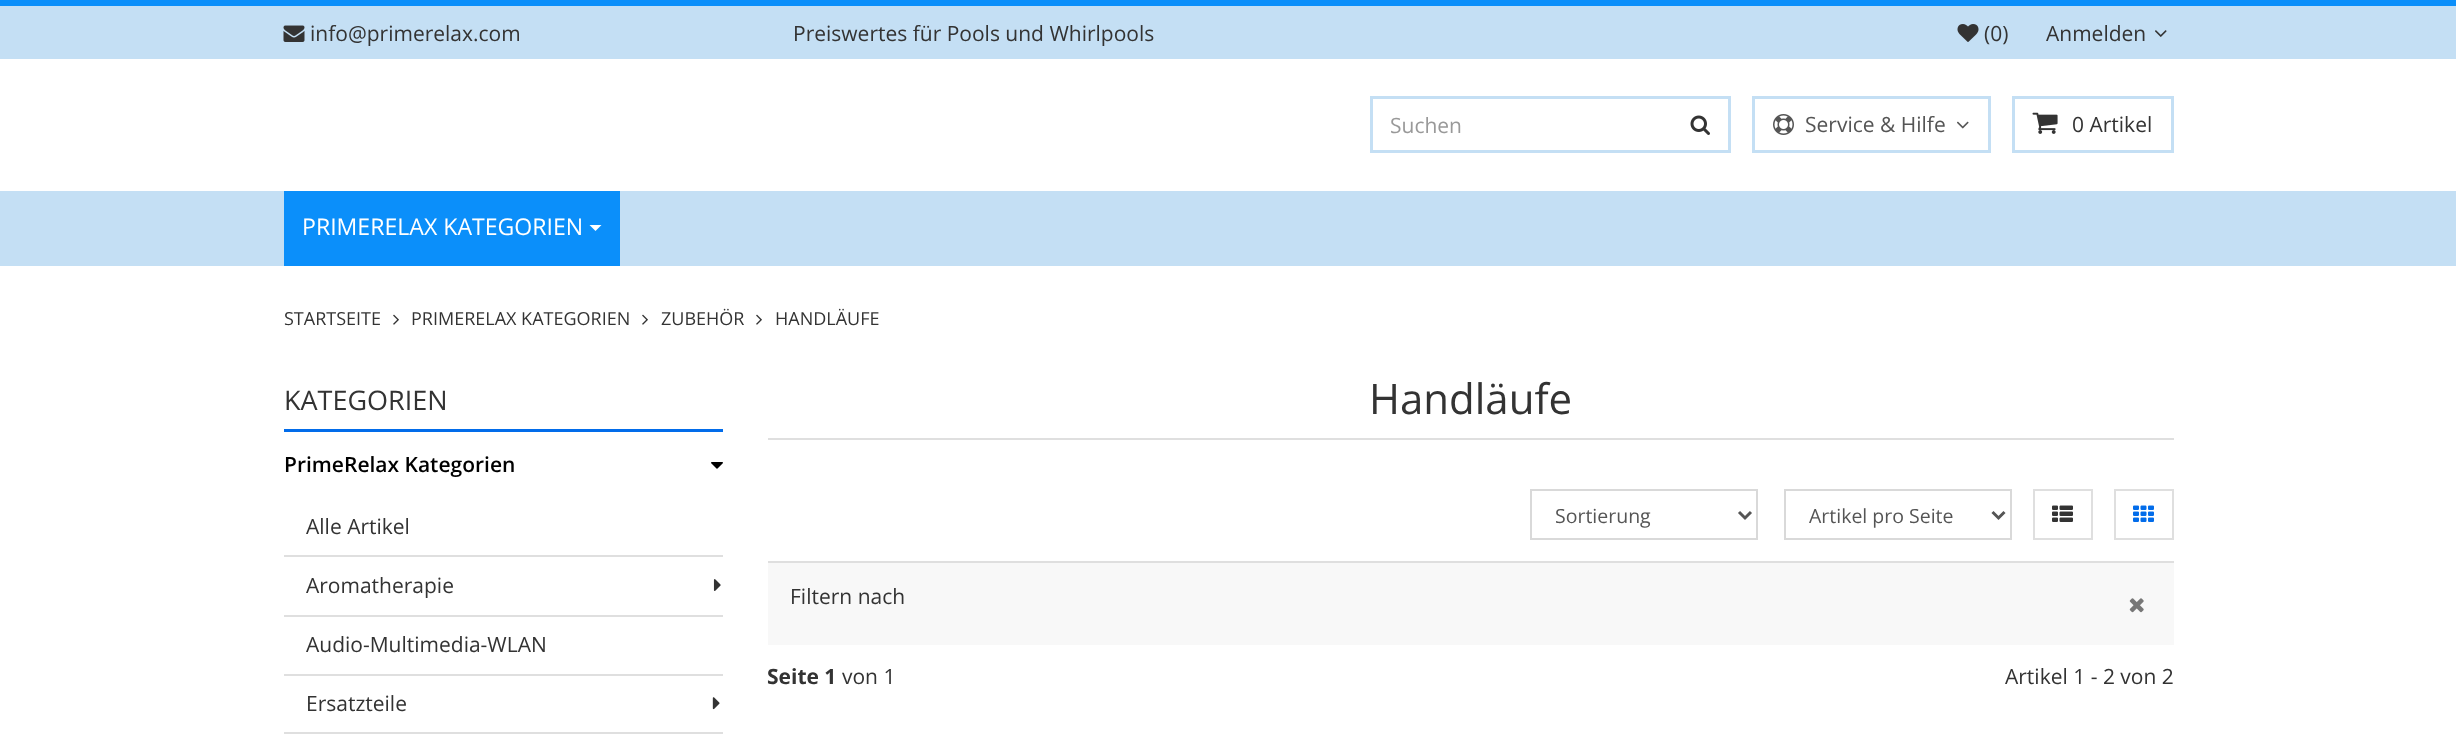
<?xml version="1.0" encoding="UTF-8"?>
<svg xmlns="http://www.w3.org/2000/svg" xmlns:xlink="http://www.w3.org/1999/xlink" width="2456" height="751">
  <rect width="100%" height="100%" fill="#ffffff" />
  <rect y="6" width="2456" height="53" fill="#c4dff4" />
  <rect width="2456" height="6" fill="#0b8ffa" />
  <image x="283" y="25" width="22" height="17" xlink:href="image1.png" />
  <image x="1957" y="24" width="22" height="18" xlink:href="image2.png" />
  <image x="2155" y="30" width="12" height="7" xlink:href="image3.png" />
  <rect x="1371.5" y="97.5" width="358" height="54" fill="none" stroke="#c4dff4" stroke-width="3" />
  <image x="1690" y="115" width="20" height="20" xlink:href="image4.png" />
  <rect x="1753.5" y="97.5" width="236" height="54" fill="none" stroke="#c4dff4" stroke-width="3" />
  <image x="1773" y="114" width="21" height="21" xlink:href="image5.png" />
  <image x="1957" y="121" width="12" height="8" xlink:href="image6.png" />
  <rect x="2013.5" y="97.5" width="159" height="54" fill="none" stroke="#c4dff4" stroke-width="3" />
  <image x="2032" y="112" width="26" height="22" xlink:href="image7.png" />
  <rect y="191" width="2456" height="75" fill="#c4dff4" />
  <rect x="284" y="191" width="336" height="75" fill="#0b8ffa" />
  <path d="M 589.5 225 h 12 l -6 6 z" fill="#ffffff" />
  <image x="393" y="314" width="6" height="11" xlink:href="image8.png" />
  <image x="642" y="314" width="6" height="11" xlink:href="image8.png" />
  <image x="756" y="314" width="6" height="11" xlink:href="image8.png" />
  <rect x="284" y="429" width="439" height="3" fill="#026cea" />
  <image x="711" y="462" width="12" height="7" xlink:href="image9.png" />
  <rect x="284" y="555" width="439" height="2" fill="#dfdfdf" />
  <rect x="284" y="615" width="439" height="2" fill="#dfdfdf" />
  <image x="713" y="579" width="8" height="12" xlink:href="image10.png" />
  <rect x="284" y="674" width="439" height="2" fill="#dfdfdf" />
  <rect x="284" y="732" width="439" height="2" fill="#dfdfdf" />
  <image x="712" y="697" width="8" height="13" xlink:href="image11.png" />
  <rect x="768" y="438" width="1406" height="2" fill="#dfdfdf" />
  <rect x="768" y="561" width="1406" height="2" fill="#dfdfdf" />
  <rect x="1531" y="490" width="226" height="49" fill="none" stroke="#d9d9d9" stroke-width="2" />
  <path d="M 1739 512 l 6 6 l 6 -6" fill="none" stroke="#555555" stroke-width="3" />
  <rect x="1785" y="490" width="226" height="49" fill="none" stroke="#d9d9d9" stroke-width="2" />
  <path d="M 1992.5 512 l 6 6 l 6 -6" fill="none" stroke="#555555" stroke-width="3" />
  <rect x="2034" y="490" width="58" height="49" fill="none" stroke="#dfdfdf" stroke-width="2" />
  <image x="2052" y="505" width="21" height="17" xlink:href="image12.png" />
  <rect x="2115" y="490" width="58" height="49" fill="none" stroke="#dfdfdf" stroke-width="2" />
  <image x="2133" y="505" width="21" height="17" xlink:href="image13.png" />
  <rect x="768" y="563" width="1406" height="82" fill="#f8f8f8" />
  <image x="2129" y="598" width="15" height="15" xlink:href="image14.png" />
  <text x="310" y="41" style="font-family: Open Sans; font-size: 21px; fill: #333333">info@primerelax.com</text>
  <text x="793" y="41" style="font-family: Open Sans; font-size: 21px; fill: #333333">Preiswertes für Pools und Whirlpools</text>
  <text x="1984" y="41" style="font-family: Open Sans; font-size: 21px; fill: #333333">(0)</text>
  <text x="2046" y="41" style="font-family: Open Sans; font-size: 21px; fill: #333333">Anmelden</text>
  <text x="1390" y="133" style="font-family: Open Sans; font-size: 21px; fill: #999999">Suchen</text>
  <text x="1805" y="132" style="font-family: Open Sans; font-size: 21px; fill: #555555">Service &amp; Hilfe</text>
  <text x="2072" y="132" style="font-family: Open Sans; font-size: 21px; fill: #333333">0 Artikel</text>
  <text x="302" y="235" style="font-family: Open Sans; font-size: 23.1px; fill: #ffffff">PRIMERELAX KATEGORIEN</text>
  <text x="284" y="325" style="font-family: Open Sans; font-size: 18px; fill: #333333">STARTSEITE</text>
  <text x="411" y="325" style="font-family: Open Sans; font-size: 18px; fill: #333333">PRIMERELAX KATEGORIEN</text>
  <text x="661" y="325" style="font-family: Open Sans; font-size: 18px; fill: #333333">ZUBEHÖR</text>
  <text x="775" y="325" style="font-family: Open Sans; font-size: 18px; fill: #333333">HANDLÄUFE</text>
  <text x="284" y="410" style="font-family: Open Sans; font-size: 27px; fill: #333333">KATEGORIEN</text>
  <text x="284" y="472" style="font-family: Open Sans; font-size: 21px; font-weight: 600; fill: #000000">PrimeRelax Kategorien</text>
  <text x="306" y="534" style="font-family: Open Sans; font-size: 21px; fill: #333333">Alle Artikel</text>
  <text x="306" y="593" style="font-family: Open Sans; font-size: 21px; fill: #333333">Aromatherapie</text>
  <text x="306" y="652" style="font-family: Open Sans; font-size: 21px; fill: #333333">Audio-Multimedia-WLAN</text>
  <text x="306" y="711" style="font-family: Open Sans; font-size: 21px; fill: #333333">Ersatzteile</text>
  <text x="1369" y="414" style="font-family: Open Sans; font-size: 42px; fill: #333333">Handläufe</text>
  <text x="1555" y="523" style="font-family: Open Sans; font-size: 19.5px; fill: #555555">Sortierung</text>
  <text x="1809" y="523" style="font-family: Open Sans; font-size: 19.5px; fill: #555555">Artikel pro Seite</text>
  <text x="790" y="604" style="font-family: Open Sans; font-size: 21px; fill: #333333">Filtern nach</text>
  <text x="767" y="684" style="font-family: Open Sans; font-size: 21px; font-weight: bold; fill: #333333">Seite 1</text>
  <text x="842" y="684" style="font-family: Open Sans; font-size: 21px; fill: #333333">von 1</text>
  <text x="2005" y="684" style="font-family: Open Sans; font-size: 21px; fill: #333333">Artikel 1 - 2 von 2</text>
</svg>
